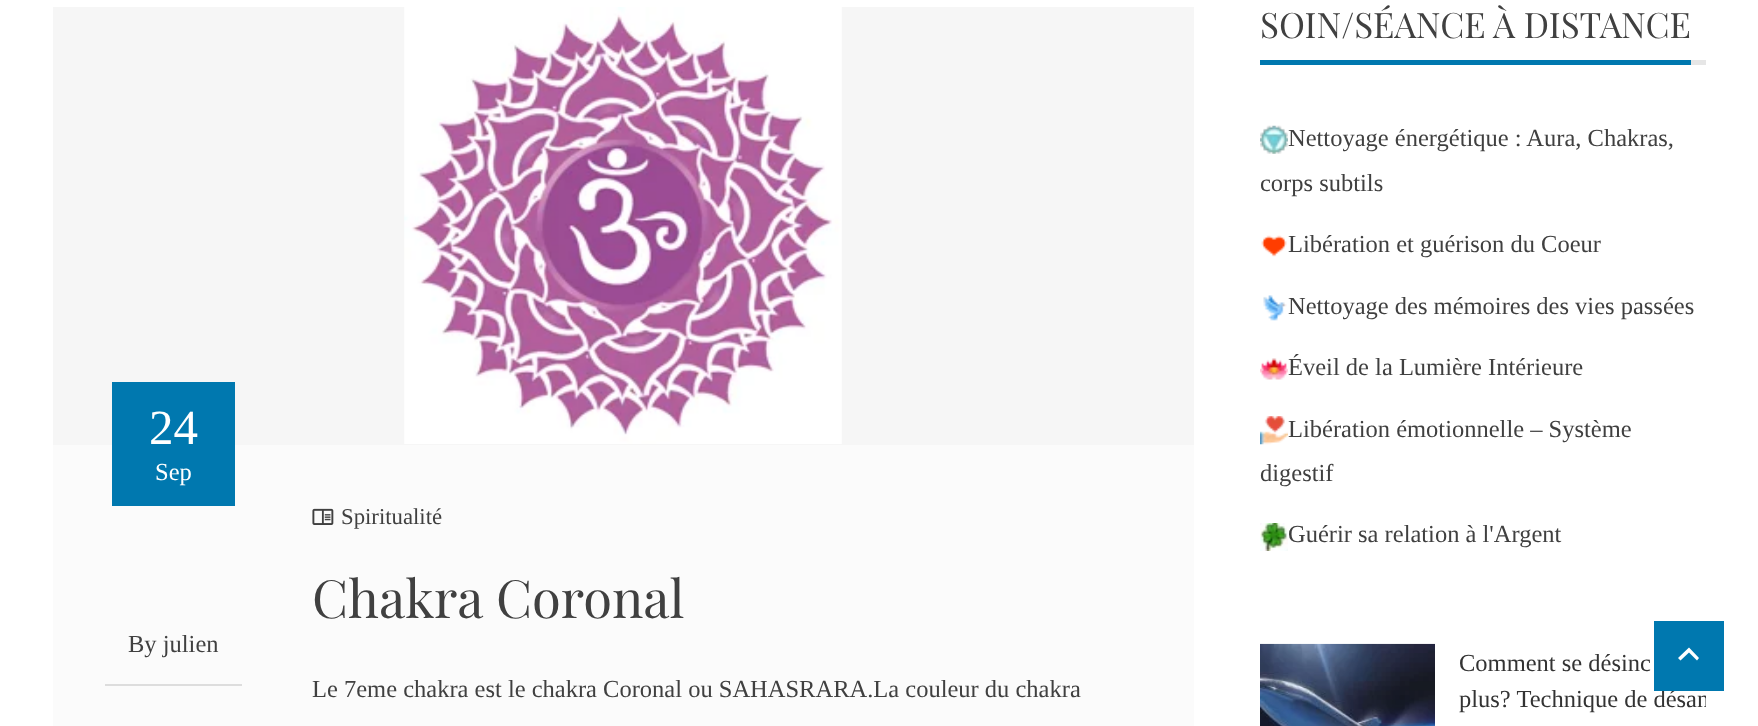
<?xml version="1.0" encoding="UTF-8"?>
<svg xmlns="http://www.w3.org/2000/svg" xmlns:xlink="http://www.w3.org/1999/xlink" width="1758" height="726">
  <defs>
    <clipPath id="clip1"><rect x="1260" y="644" width="446" height="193" /></clipPath>
  </defs>
  <rect width="100%" height="100%" fill="#ffffff" />
  <rect x="53" y="7" width="1141" height="438" fill="#f6f6f6" />
  <image x="404" y="7" width="438" height="437" xlink:href="image1.png" />
  <rect x="53" y="445" width="1141" height="281" fill="#fbfbfb" />
  <rect x="112" y="382" width="123" height="124" fill="#0078af" />
  <rect x="105" y="684" width="137" height="2" fill="#dddddd" />
  <image x="312" y="508" width="22" height="17" xlink:href="image2.png" />
  <rect x="1691" y="60" width="15" height="5" fill="#e6e6e6" />
  <rect x="1260" y="60" width="431" height="5" fill="#0078af" />
  <image x="1260" y="125" width="28" height="29" xlink:href="image3.png" />
  <image x="1261" y="235" width="26" height="22" xlink:href="image4.png" />
  <image x="1263" y="295" width="24" height="26" xlink:href="image5.png" />
  <image x="1260" y="358" width="28" height="22" xlink:href="image6.png" />
  <image x="1260" y="416" width="28" height="29" xlink:href="image7.png" />
  <image x="1260" y="523" width="28" height="28" xlink:href="image8.png" />
  <image x="1260" y="643" width="175" height="83" xlink:href="image9.png" />
  <text x="149" y="444" style="font-family: Liberation Serif; font-size: 49px; fill: #ffffff">24</text>
  <text x="155" y="480" style="font-family: Liberation Serif; font-size: 24.5px; fill: #ffffff">Sep</text>
  <text x="128" y="652" style="font-family: Liberation Serif; font-size: 24.5px; fill: #404040">By julien</text>
  <text x="341" y="524" style="font-family: Liberation Serif; font-size: 22.75px; fill: #404040">Spiritualité</text>
  <text x="312" y="618" style="font-family: Playfair Display; font-size: 52.5px; fill: #404040">Chakra Coronal</text>
  <text x="312" y="697" style="font-family: Liberation Serif; font-size: 24.5px; fill: #404040">Le 7eme chakra est le chakra Coronal ou SAHASRARA.La couleur du chakra</text>
  <text x="1260" y="38" style="font-family: Playfair Display; font-size: 35px; fill: #404040">SOIN/SÉANCE À DISTANCE</text>
  <text x="1288" y="146" style="font-family: Liberation Serif; font-size: 24.5px; fill: #404040">Nettoyage énergétique : Aura, Chakras,</text>
  <text x="1260" y="191" style="font-family: Liberation Serif; font-size: 24.5px; fill: #404040">corps subtils</text>
  <text x="1288" y="252" style="font-family: Liberation Serif; font-size: 24.5px; fill: #404040">Libération et guérison du Coeur</text>
  <text x="1288" y="314" style="font-family: Liberation Serif; font-size: 24.5px; fill: #404040">Nettoyage des mémoires des vies passées</text>
  <text x="1288" y="375" style="font-family: Liberation Serif; font-size: 24.5px; fill: #404040">Éveil de la Lumière Intérieure</text>
  <text x="1288" y="437" style="font-family: Liberation Serif; font-size: 24.5px; fill: #404040">Libération émotionnelle – Système</text>
  <text x="1260" y="481" style="font-family: Liberation Serif; font-size: 24.5px; fill: #404040">digestif</text>
  <text x="1288" y="542" style="font-family: Liberation Serif; font-size: 24.5px; fill: #404040">Guérir sa relation à l'Argent</text>
  <text x="1459" y="671" style="font-family: Liberation Serif; font-size: 24.5px; fill: #333333">Comment se désinc</text>
  <g clip-path="url(#clip1)">
    <text x="1459" y="707" style="font-family: Liberation Serif; font-size: 24.5px; fill: #333333">plus? Technique de désan</text>
  </g>
  <rect x="1654" y="621" width="70" height="70" fill="#0078af" />
  <path d="M 1680.5 660.5 l 8.5 -8 l 8 8 l 2 -2.5 l -10 -10.5 l -11 10.5 z" fill="#ffffff" />
</svg>
